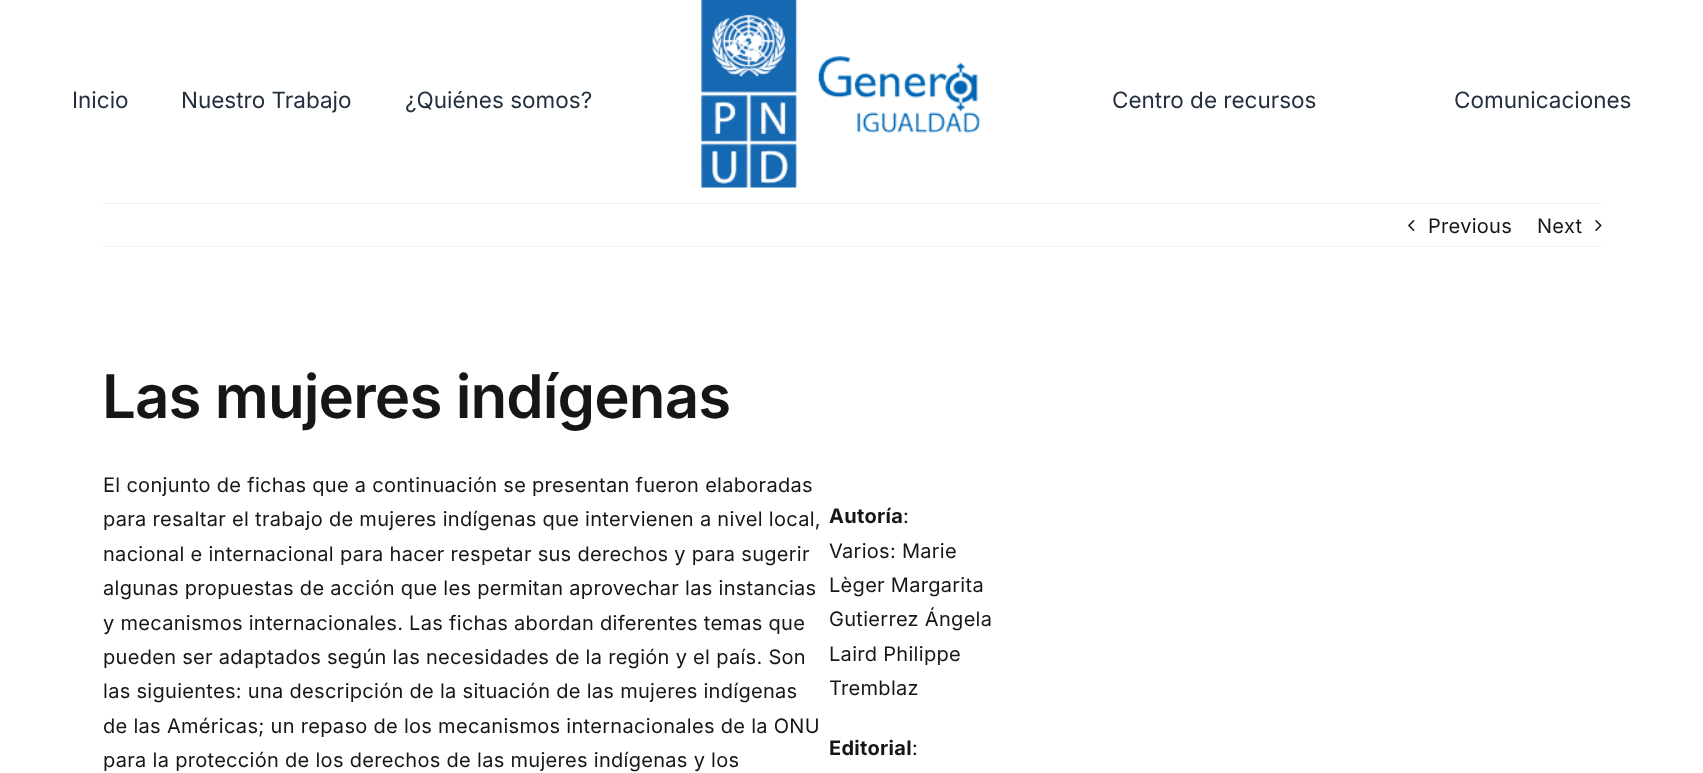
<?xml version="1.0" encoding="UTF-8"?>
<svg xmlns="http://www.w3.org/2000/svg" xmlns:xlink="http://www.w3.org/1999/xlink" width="1703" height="773">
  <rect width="100%" height="100%" fill="#ffffff" />
  <image x="701" y="0" width="280" height="188" xlink:href="image1.png" />
  <rect x="103" y="203" width="1500" height="1" fill="#f2f3f5" />
  <rect x="103" y="246" width="1500" height="1" fill="#f2f3f5" />
  <image x="1408" y="220" width="7" height="11" xlink:href="image2.png" />
  <image x="1595" y="220" width="7" height="11" xlink:href="image3.png" />
  <text x="72" y="108" style="font-family: Inter; font-size: 22.5px; fill: #232e3e">Inicio</text>
  <text x="181" y="108" style="font-family: Inter; font-size: 22.5px; fill: #232e3e">Nuestro Trabajo</text>
  <text x="405" y="108" style="font-family: Inter; font-size: 22.5px; fill: #232e3e">¿Quiénes somos?</text>
  <text x="1112" y="108" style="font-family: Inter; font-size: 22.5px; fill: #232e3e">Centro de recursos</text>
  <text x="1454" y="108" style="font-family: Inter; font-size: 22.5px; fill: #232e3e">Comunicaciones</text>
  <text x="1428" y="233" style="font-family: Inter; font-size: 20px; letter-spacing: 0.3px; fill: #141617">Previous</text>
  <text x="1537" y="233" style="font-family: Inter; font-size: 20px; letter-spacing: 0.3px; fill: #141617">Next</text>
  <text x="102" y="418" style="font-family: Inter; font-size: 60px; font-weight: 600; letter-spacing: -0.9px; fill: #141617">Las mujeres indígenas</text>
  <text x="103" y="492" style="font-family: Inter; font-size: 20px; letter-spacing: 0.3px; fill: #141617">El conjunto de fichas que a continuación se presentan fueron elaboradas</text>
  <text x="103" y="526" style="font-family: Inter; font-size: 20px; letter-spacing: 0.3px; fill: #141617">para resaltar el trabajo de mujeres indígenas que intervienen a nivel local,</text>
  <text x="103" y="561" style="font-family: Inter; font-size: 20px; letter-spacing: 0.3px; fill: #141617">nacional e internacional para hacer respetar sus derechos y para sugerir</text>
  <text x="103" y="595" style="font-family: Inter; font-size: 20px; letter-spacing: 0.3px; fill: #141617">algunas propuestas de acción que les permitan aprovechar las instancias</text>
  <text x="103" y="630" style="font-family: Inter; font-size: 20px; letter-spacing: 0.3px; fill: #141617">y mecanismos internacionales. Las fichas abordan diferentes temas que</text>
  <text x="103" y="664" style="font-family: Inter; font-size: 20px; letter-spacing: 0.3px; fill: #141617">pueden ser adaptados según las necesidades de la región y el país. Son</text>
  <text x="103" y="698" style="font-family: Inter; font-size: 20px; letter-spacing: 0.3px; fill: #141617">las siguientes: una descripción de la situación de las mujeres indígenas</text>
  <text x="103" y="733" style="font-family: Inter; font-size: 20px; letter-spacing: 0.3px; fill: #141617">de las Américas; un repaso de los mecanismos internacionales de la ONU</text>
  <text x="103" y="767" style="font-family: Inter; font-size: 20px; letter-spacing: 0.3px; fill: #141617">para la protección de los derechos de las mujeres indígenas y los</text>
  <text x="829" y="523" style="font-family: Inter; font-size: 20px; font-weight: bold; letter-spacing: 0.3px; fill: #141617">Autoría</text>
  <text x="903" y="523" style="font-family: Inter; font-size: 20px; letter-spacing: 0.3px; fill: #141617">:</text>
  <text x="829" y="558" style="font-family: Inter; font-size: 20px; letter-spacing: 0.3px; fill: #141617">Varios: Marie</text>
  <text x="829" y="592" style="font-family: Inter; font-size: 20px; letter-spacing: 0.3px; fill: #141617">Lèger Margarita</text>
  <text x="829" y="626" style="font-family: Inter; font-size: 20px; letter-spacing: 0.3px; fill: #141617">Gutierrez Ángela</text>
  <text x="829" y="661" style="font-family: Inter; font-size: 20px; letter-spacing: 0.3px; fill: #141617">Laird Philippe</text>
  <text x="829" y="695" style="font-family: Inter; font-size: 20px; letter-spacing: 0.3px; fill: #141617">Tremblaz</text>
  <text x="829" y="755" style="font-family: Inter; font-size: 20px; font-weight: bold; letter-spacing: 0.3px; fill: #141617">Editorial</text>
  <text x="912" y="755" style="font-family: Inter; font-size: 20px; letter-spacing: 0.3px; fill: #141617">:</text>
</svg>
